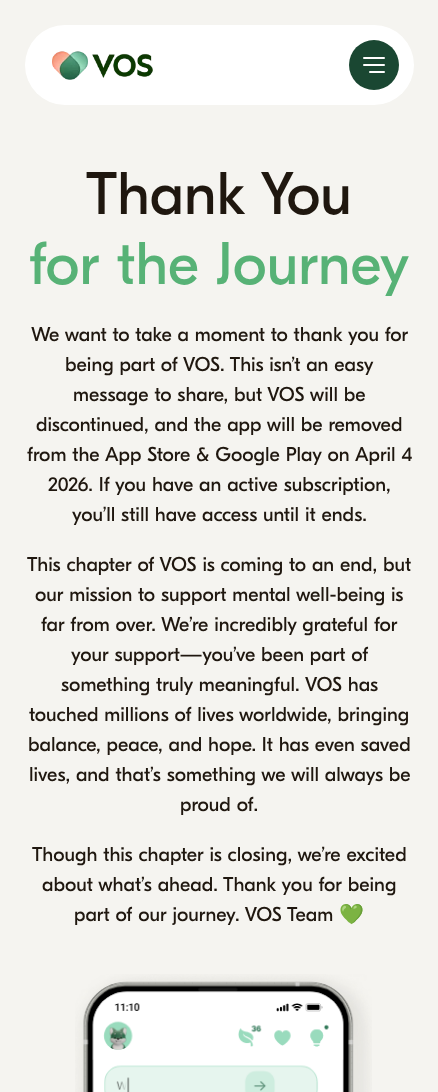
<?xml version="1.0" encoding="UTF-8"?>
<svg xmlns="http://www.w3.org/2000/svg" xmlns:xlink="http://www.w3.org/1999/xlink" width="438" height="1092">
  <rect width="100%" height="100%" fill="#f5f4f0" />
  <rect x="25" y="25" width="389" height="80" rx="40" fill="#ffffff" />
  <image x="52" y="51" width="101" height="29" xlink:href="image1.png" />
  <circle cx="374" cy="65" r="25" fill="#1a4732" />
  <rect x="363" y="57" width="22" height="2" rx="1" fill="#ffffff" />
  <rect x="363" y="64" width="22" height="2" rx="1" fill="#ffffff" />
  <rect x="369" y="71" width="16" height="2" rx="1" fill="#ffffff" />
  <image x="75" y="974" width="297" height="118" xlink:href="image2.png" />
  <text x="86" y="214" style="font-family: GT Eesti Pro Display; font-size: 60px; fill: #1f170f">Thank You</text>
  <text x="29" y="284" style="font-family: GT Eesti Pro Display; font-size: 60px; fill: #57b276">for the Journey</text>
  <text x="31" y="341" style="font-family: GT Eesti Pro Display; font-size: 20px; fill: #1f170f">We want to take a moment to thank you for</text>
  <text x="65" y="371" style="font-family: GT Eesti Pro Display; font-size: 20px; fill: #1f170f">being part of VOS. This isn’t an easy</text>
  <text x="73" y="401" style="font-family: GT Eesti Pro Display; font-size: 20px; fill: #1f170f">message to share, but VOS will be</text>
  <text x="36" y="431" style="font-family: GT Eesti Pro Display; font-size: 20px; fill: #1f170f">discontinued, and the app will be removed</text>
  <text x="27" y="461" style="font-family: GT Eesti Pro Display; font-size: 20px; fill: #1f170f">from the App Store &amp; Google Play on April 4</text>
  <text x="48" y="491" style="font-family: GT Eesti Pro Display; font-size: 20px; fill: #1f170f">2026. If you have an active subscription,</text>
  <text x="72" y="521" style="font-family: GT Eesti Pro Display; font-size: 20px; fill: #1f170f">you’ll still have access until it ends.</text>
  <text x="27" y="571" style="font-family: GT Eesti Pro Display; font-size: 20px; fill: #1f170f">This chapter of VOS is coming to an end, but</text>
  <text x="35" y="601" style="font-family: GT Eesti Pro Display; font-size: 20px; fill: #1f170f">our mission to support mental well-being is</text>
  <text x="41" y="631" style="font-family: GT Eesti Pro Display; font-size: 20px; fill: #1f170f">far from over. We’re incredibly grateful for</text>
  <text x="71" y="661" style="font-family: GT Eesti Pro Display; font-size: 20px; fill: #1f170f">your support—you’ve been part of</text>
  <text x="61" y="691" style="font-family: GT Eesti Pro Display; font-size: 20px; fill: #1f170f">something truly meaningful. VOS has</text>
  <text x="29" y="721" style="font-family: GT Eesti Pro Display; font-size: 20px; fill: #1f170f">touched millions of lives worldwide, bringing</text>
  <text x="28" y="751" style="font-family: GT Eesti Pro Display; font-size: 20px; fill: #1f170f">balance, peace, and hope. It has even saved</text>
  <text x="29" y="781" style="font-family: GT Eesti Pro Display; font-size: 20px; fill: #1f170f">lives, and that’s something we will always be</text>
  <text x="180" y="811" style="font-family: GT Eesti Pro Display; font-size: 20px; fill: #1f170f">proud of.</text>
  <text x="32" y="861" style="font-family: GT Eesti Pro Display; font-size: 20px; fill: #1f170f">Though this chapter is closing, we’re excited</text>
  <text x="42" y="891" style="font-family: GT Eesti Pro Display; font-size: 20px; fill: #1f170f">about what’s ahead. Thank you for being</text>
  <text x="74" y="921" style="font-family: GT Eesti Pro Display; font-size: 20px; fill: #1f170f">part of our journey. VOS Team</text>
  <text x="339" y="921" style="font-family: Noto Color Emoji; font-size: 20px; fill: #1f170f">💚</text>
</svg>
